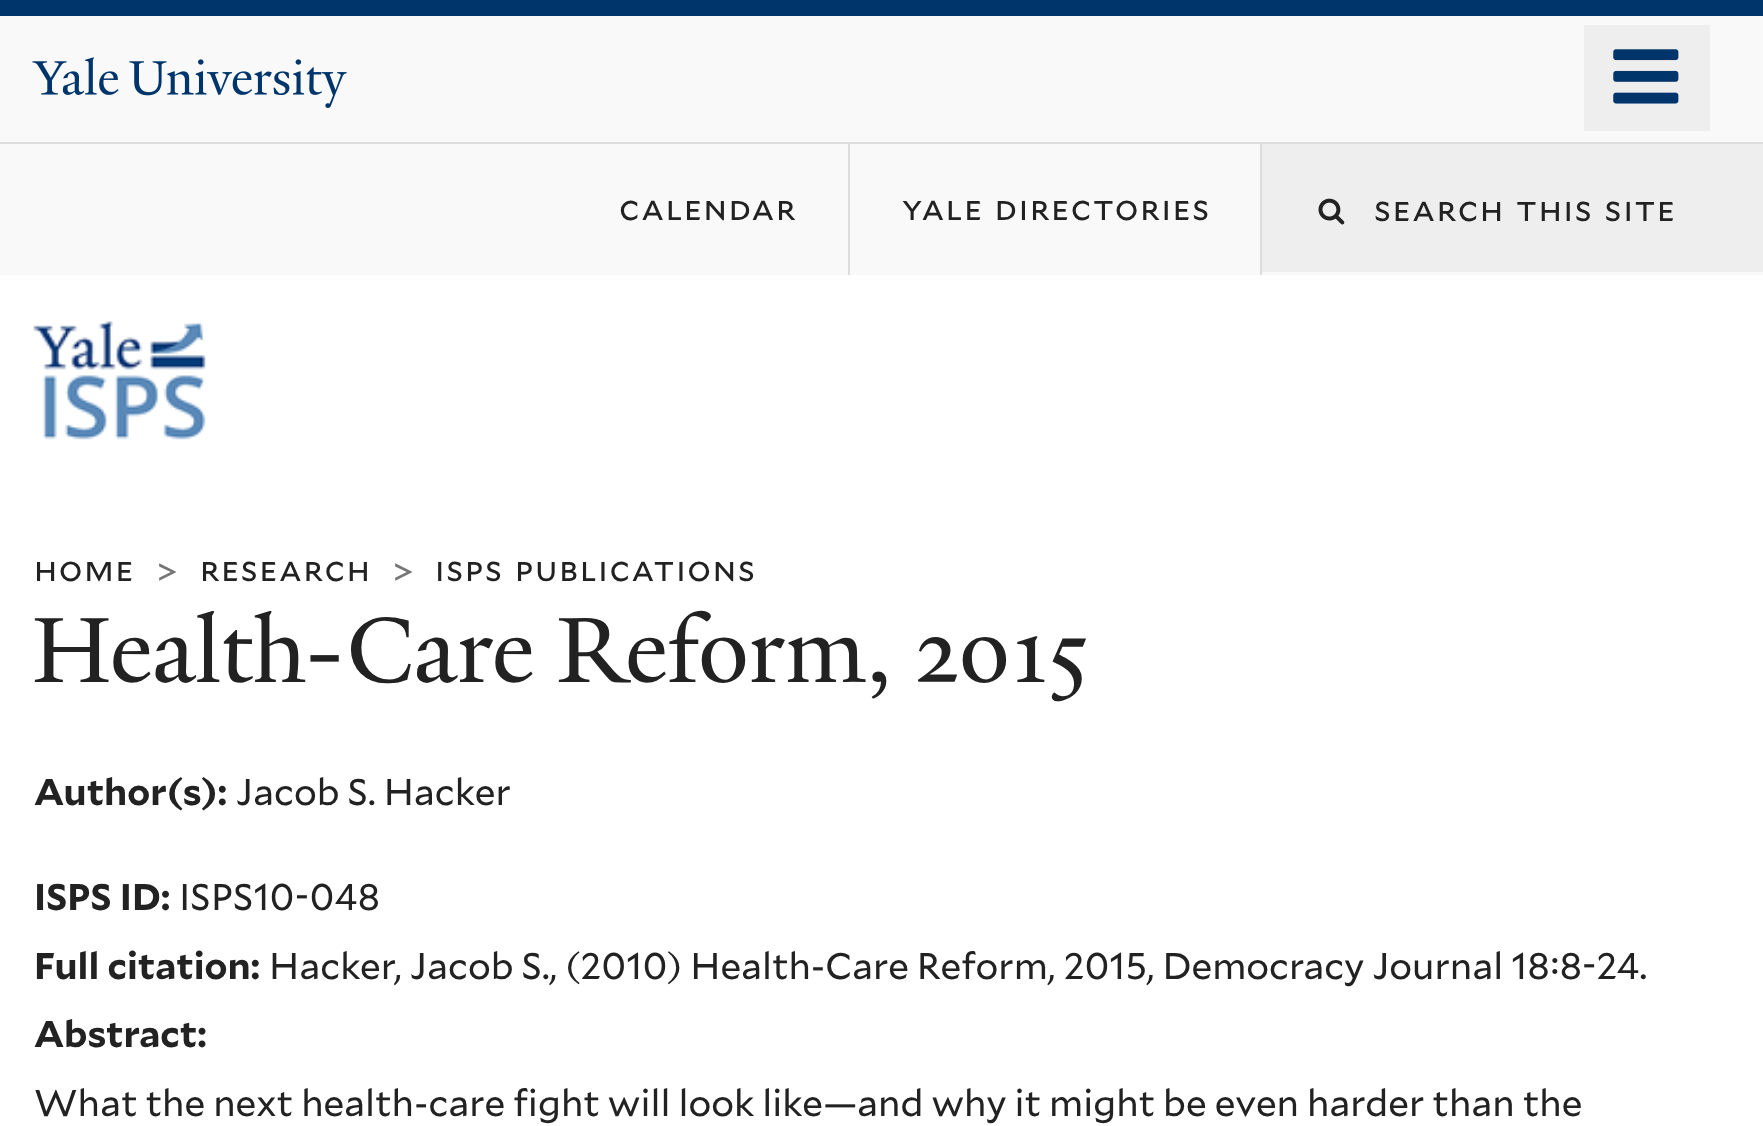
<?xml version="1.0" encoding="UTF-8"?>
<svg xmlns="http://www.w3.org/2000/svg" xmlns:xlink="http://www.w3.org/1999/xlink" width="1763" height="1126">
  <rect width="100%" height="100%" fill="#ffffff" />
  <rect width="1763" height="16" fill="#00356b" />
  <rect y="16" width="1763" height="259" fill="#f9f9f9" />
  <rect y="142" width="1763" height="2" fill="#dddddd" />
  <image x="32" y="57" width="87" height="38" xlink:href="image1.png" />
  <image x="129" y="59" width="218" height="49" xlink:href="image2.png" />
  <rect x="1584" y="25" width="126" height="106" fill="#eeeeee" />
  <image x="1613" y="49" width="66" height="55" xlink:href="image3.png" />
  <rect x="848" y="144" width="2" height="131" fill="#dddddd" />
  <rect x="1260" y="144" width="2" height="131" fill="#dddddd" />
  <rect x="1262" y="144" width="501" height="128" fill="#eeeeee" />
  <image x="1318" y="198" width="27" height="27" xlink:href="image4.png" />
  <image x="33" y="321" width="173" height="119" xlink:href="image5.png" />
  <text x="619" y="220" style="font-family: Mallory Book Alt; font-size: 34.25px; letter-spacing: 1.75px; fill: #222222">calendar</text>
  <text x="902" y="220" word-spacing="2" style="font-family: Mallory Book Alt; font-size: 34.25px; letter-spacing: 1.75px; fill: #222222">yale directories</text>
  <text x="1374" y="221" word-spacing="2" style="font-family: Mallory Book Alt; font-size: 34.25px; letter-spacing: 1.75px; fill: #222222">search this site</text>
  <text x="34" y="581" style="font-family: Mallory Book Alt; font-size: 34.25px; letter-spacing: 1.75px; fill: #222222">home</text>
  <text x="157" y="584" style="font-family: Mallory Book; font-size: 34.25px; letter-spacing: 1.75px; fill: #767676">&gt;</text>
  <text x="200" y="581" style="font-family: Mallory Book Alt; font-size: 34.25px; letter-spacing: 1.75px; fill: #222222">research</text>
  <text x="393" y="584" style="font-family: Mallory Book; font-size: 34.25px; letter-spacing: 1.75px; fill: #767676">&gt;</text>
  <text x="435" y="581" word-spacing="2" style="font-family: Mallory Book Alt; font-size: 34.25px; letter-spacing: 1.75px; fill: #222222">isps publications</text>
  <text x="32" y="682" style="font-family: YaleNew; font-size: 100.25px; fill: #222222">Health-Care Reform, 2015</text>
  <text x="34" y="805" style="font-family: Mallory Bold; font-size: 37.05px; font-weight: bold; fill: #222222">Author(s):</text>
  <text x="236" y="805" style="font-family: Mallory Book; font-size: 37.05px; fill: #222222">Jacob S. Hacker</text>
  <text x="34" y="910" style="font-family: Mallory Bold; font-size: 37.05px; font-weight: bold; fill: #222222">ISPS ID:</text>
  <text x="179" y="910" style="font-family: Mallory Book; font-size: 37.05px; fill: #222222">ISPS10-048</text>
  <text x="34" y="979" style="font-family: Mallory Bold; font-size: 37.05px; font-weight: bold; fill: #222222">Full citation:</text>
  <text x="269" y="979" style="font-family: Mallory Book; font-size: 37.05px; fill: #222222">Hacker, Jacob S., (2010) Health-Care Reform, 2015, Democracy Journal 18:8-24.</text>
  <text x="34" y="1047" style="font-family: Mallory Bold; font-size: 37.05px; font-weight: bold; fill: #222222">Abstract:</text>
  <text x="34" y="1116" style="font-family: Mallory Book; font-size: 37.05px; fill: #222222">What the next health-care fight will look like—and why it might be even harder than the</text>
</svg>
